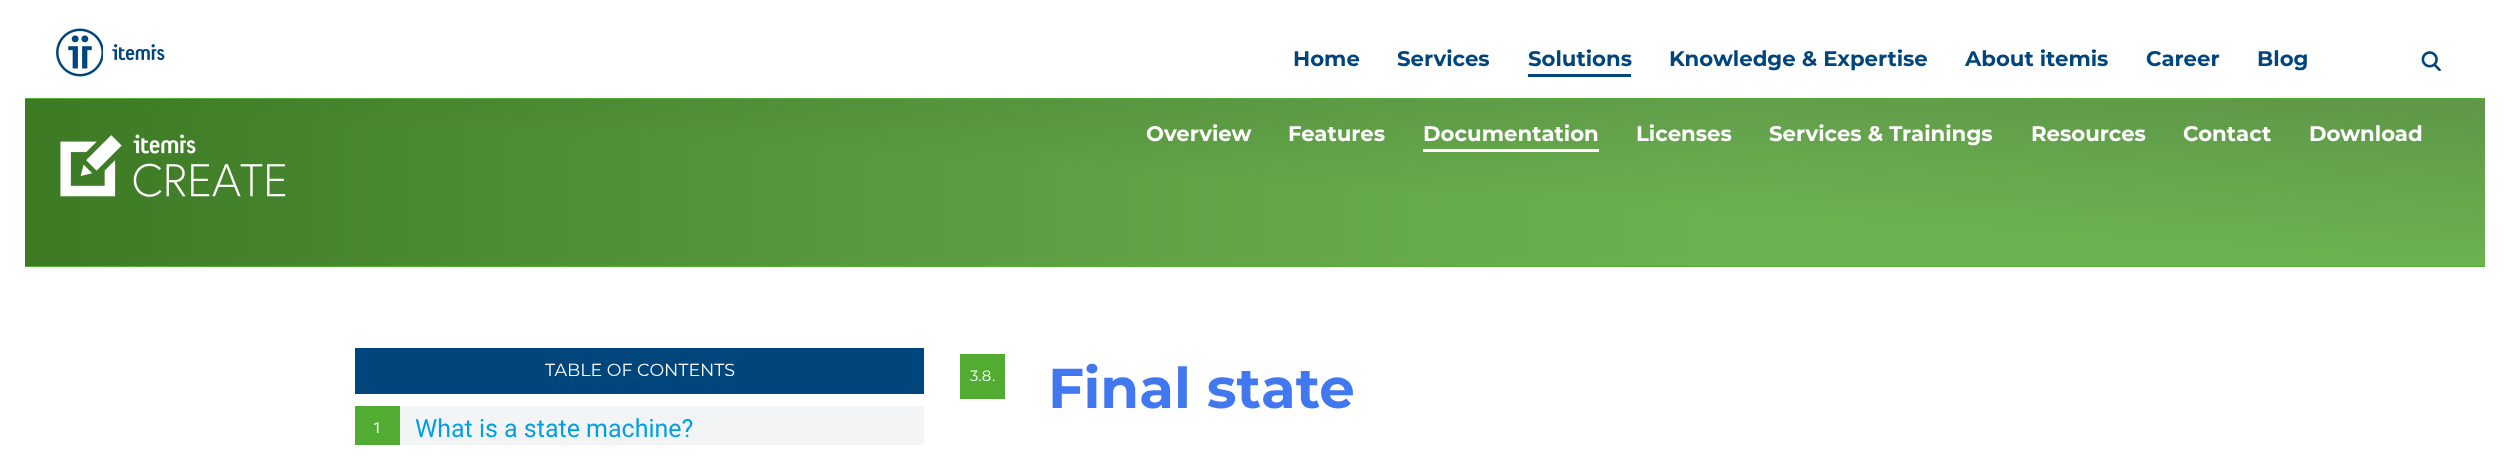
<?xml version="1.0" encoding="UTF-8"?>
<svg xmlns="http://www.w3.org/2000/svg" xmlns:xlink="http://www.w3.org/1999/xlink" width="2509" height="469">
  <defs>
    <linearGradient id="g1" gradientUnits="userSpaceOnUse" x1="1244" y1="349" x2="1266" y2="16"><stop offset="0.5" stop-color="#54ac32" /><stop offset="1" stop-color="#448a28" /></linearGradient>
    <linearGradient id="g2" gradientUnits="userSpaceOnUse" x1="2485" y1="182" x2="25" y2="183"><stop offset="0.3" stop-color="#c7c7c7" stop-opacity="0.2" /><stop offset="1" stop-color="#000000" stop-opacity="0.3" /></linearGradient>
  </defs>
  <rect width="100%" height="100%" fill="#ffffff" />
  <image x="56" y="28" width="47" height="49" xlink:href="image1.png" />
  <image x="112" y="44" width="53" height="17" xlink:href="image2.png" />
  <rect x="1528" y="74" width="103" height="3" fill="#00457c" />
  <image x="2421" y="51" width="20" height="20" xlink:href="image3.png" />
  <rect x="25" y="98" width="2460" height="169" fill="#55ad32" />
  <rect x="110" y="99" width="2375" height="157" fill="url(#g1)" />
  <rect x="25" y="99" width="2460" height="167" fill="url(#g2)" />
  <rect x="1423" y="149" width="176" height="3" fill="#ffffff" />
  <image x="60" y="134" width="226" height="63" xlink:href="image4.png" />
  <rect x="355" y="348" width="569" height="46" fill="#00457c" />
  <rect x="400" y="406" width="524" height="39" fill="#f3f4f5" />
  <rect x="355" y="406" width="45" height="39" fill="#53ac32" />
  <rect x="960" y="354" width="45" height="45" fill="#53ac32" />
  <text x="1293" y="66" style="font-family: Montserrat; font-size: 21.25px; font-weight: bold; fill: #00457c">Home</text>
  <text x="1397" y="66" style="font-family: Montserrat; font-size: 21.25px; font-weight: bold; fill: #00457c">Services</text>
  <text x="1528" y="66" style="font-family: Montserrat; font-size: 21.25px; font-weight: bold; fill: #00457c">Solutions</text>
  <text x="1669" y="66" style="font-family: Montserrat; font-size: 21.25px; font-weight: bold; fill: #00457c">Knowledge &amp; Expertise</text>
  <text x="1965" y="66" style="font-family: Montserrat; font-size: 21.25px; font-weight: bold; fill: #00457c">About itemis</text>
  <text x="2146" y="66" style="font-family: Montserrat; font-size: 21.25px; font-weight: bold; fill: #00457c">Career</text>
  <text x="2257" y="66" style="font-family: Montserrat; font-size: 21.25px; font-weight: bold; fill: #00457c">Blog</text>
  <text x="1146" y="141" style="font-family: Montserrat; font-size: 21.25px; font-weight: bold; fill: #ffffff">Overview</text>
  <text x="1288" y="141" style="font-family: Montserrat; font-size: 21.25px; font-weight: bold; fill: #ffffff">Features</text>
  <text x="1423" y="141" style="font-family: Montserrat; font-size: 21.25px; font-weight: bold; fill: #ffffff">Documentation</text>
  <text x="1636" y="141" style="font-family: Montserrat; font-size: 21.25px; font-weight: bold; fill: #ffffff">Licenses</text>
  <text x="1769" y="141" style="font-family: Montserrat; font-size: 21.25px; font-weight: bold; fill: #ffffff">Services &amp; Trainings</text>
  <text x="2031" y="141" style="font-family: Montserrat; font-size: 21.25px; font-weight: bold; fill: #ffffff">Resources</text>
  <text x="2183" y="141" style="font-family: Montserrat; font-size: 21.25px; font-weight: bold; fill: #ffffff">Contact</text>
  <text x="2309" y="141" style="font-family: Montserrat; font-size: 21.25px; font-weight: bold; fill: #ffffff">Download</text>
  <text x="545" y="376" style="font-family: Montserrat; font-size: 17.5px; fill: #ffffff">TABLE OF CONTENTS</text>
  <text x="373" y="433" style="font-family: Roboto; font-size: 15px; fill: #ffffff">1</text>
  <text x="415" y="437" style="font-family: Roboto; font-size: 25px; fill: #009fe3">What is a state machine?</text>
  <text x="970" y="381" style="font-family: Montserrat; font-size: 15px; fill: #ffffff">3.8</text>
  <text x="992" y="381" style="font-family: Montserrat; font-size: 15px; fill: #ffffff">.</text>
  <text x="1048" y="408" style="font-family: Montserrat; font-size: 56.25px; font-weight: bold; fill: #4178f0">Final state</text>
</svg>
